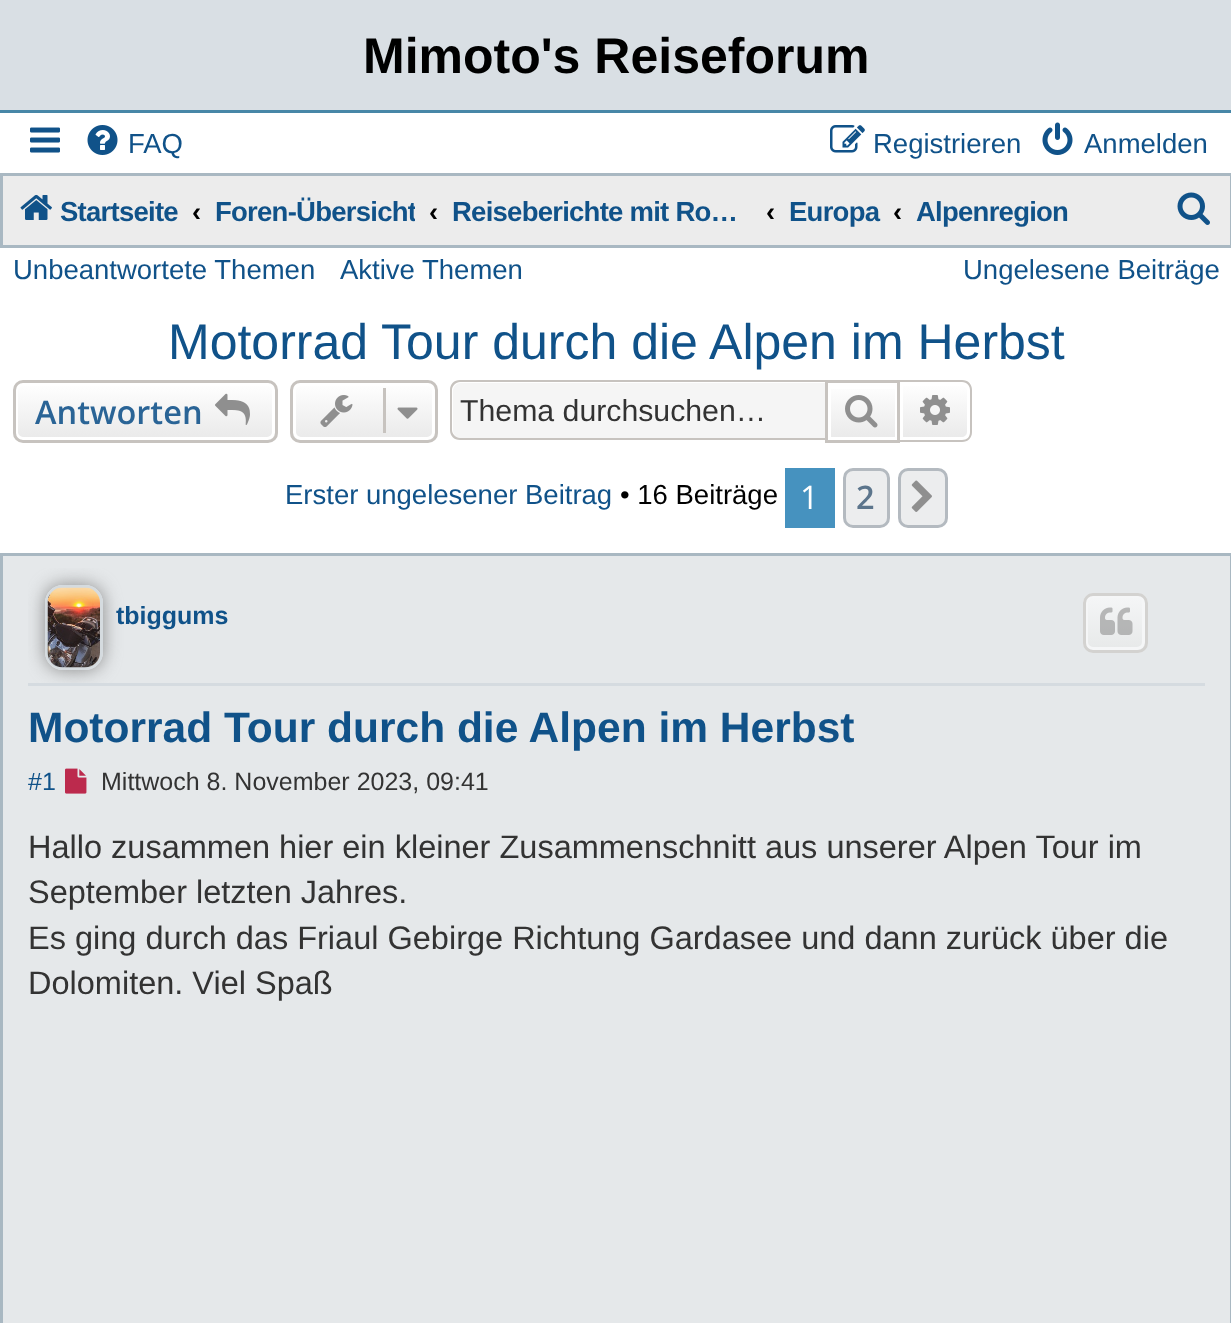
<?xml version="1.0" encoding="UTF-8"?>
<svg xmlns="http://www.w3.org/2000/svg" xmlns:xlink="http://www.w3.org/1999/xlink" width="1231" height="1323">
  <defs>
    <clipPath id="clip1"><rect x="13" y="380" width="265" height="63" rx="10" /></clipPath>
    <linearGradient id="g1" gradientUnits="userSpaceOnUse" x1="145" y1="383" x2="145" y2="440"><stop offset="0" stop-color="#ffffff" /><stop offset="1" stop-color="#e9e9e9" /></linearGradient>
    <clipPath id="clip2"><rect x="290" y="380" width="148" height="63" rx="10" /></clipPath>
    <linearGradient id="g2" gradientUnits="userSpaceOnUse" x1="364" y1="383" x2="364" y2="440"><stop offset="0" stop-color="#ffffff" /><stop offset="1" stop-color="#e9e9e9" /></linearGradient>
    <linearGradient id="g3" gradientUnits="userSpaceOnUse" x1="863" y1="383" x2="863" y2="440"><stop offset="0" stop-color="#ffffff" /><stop offset="1" stop-color="#e9e9e9" /></linearGradient>
    <linearGradient id="g4" gradientUnits="userSpaceOnUse" x1="935" y1="383" x2="935" y2="440"><stop offset="0" stop-color="#ffffff" /><stop offset="1" stop-color="#e9e9e9" /></linearGradient>
    <clipPath id="clip3"><rect x="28" y="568" width="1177" height="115" /></clipPath>
    <clipPath id="clip4"><path d="M 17 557 h 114 v 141 h -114 z m 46 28 h 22 c 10 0 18 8 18 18 v 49 c 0 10 -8 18 -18 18 h -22 c -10 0 -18 -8 -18 -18 v -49 c 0 -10 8 -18 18 -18 z" clip-rule="evenodd" /></clipPath>
    <clipPath id="clip5"><rect x="1083" y="593" width="65" height="60" rx="10" /></clipPath>
    <linearGradient id="g5" gradientUnits="userSpaceOnUse" x1="1115" y1="595" x2="1115" y2="650"><stop offset="0" stop-color="#f5f6f7" /><stop offset="1" stop-color="#e7e9e9" /></linearGradient>
    <clipPath id="clip6"><rect x="215" y="180" width="200" height="60" /></clipPath>
  </defs>
  <rect width="100%" height="100%" fill="#ffffff" />
  <rect width="1231" height="110" fill="#d9dfe4" />
  <rect y="110" width="1231" height="3" fill="#4787a7" />
  <image x="30" y="127" width="30" height="26" xlink:href="image1.png" />
  <image x="87" y="125" width="31" height="30" xlink:href="image2.png" />
  <image x="830" y="125" width="35" height="28" xlink:href="image3.png" />
  <image x="1042" y="122" width="31" height="33" xlink:href="image4.png" />
  <rect x="1.5" y="174.5" width="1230" height="72" fill="#ececec" stroke="#a9b8c2" stroke-width="3" />
  <image x="20" y="194" width="32" height="26" xlink:href="image5.png" />
  <image x="1177" y="192" width="33" height="33" xlink:href="image6.png" />
  <g clip-path="url(#clip1)">
    <rect x="13" y="383" width="265" height="57" fill="url(#g1)" />
  </g>
  <rect x="16.5" y="384.5" width="257" height="54" rx="6.5" fill="none" stroke="#ffffff" stroke-width="3" />
  <rect x="14.5" y="381.5" width="262" height="60" rx="8.5" fill="none" stroke="#c7c3bf" stroke-width="3" />
  <image x="215" y="393" width="35" height="32" xlink:href="image7.png" />
  <g clip-path="url(#clip2)">
    <rect x="290" y="383" width="148" height="57" fill="url(#g2)" />
  </g>
  <rect x="294.5" y="384.5" width="139" height="54" rx="6.5" fill="none" stroke="#ffffff" stroke-width="3" />
  <rect x="291.5" y="381.5" width="145" height="60" rx="8.5" fill="none" stroke="#c7c3bf" stroke-width="3" />
  <image x="320" y="395" width="33" height="32" xlink:href="image8.png" />
  <rect x="383" y="388" width="3" height="45" fill="#c7c3bf" />
  <image x="397" y="407" width="21" height="12" xlink:href="image9.png" />
  <path d="M 461 383 h 364 v 55 h -364 c -4.5 0 -8 -3.5 -8 -8 v -39 c 0 -4.5 3.5 -8 8 -8 z" fill="#f5f5f5" />
  <path d="M 460 380 h 365 v 60 h -365 c -6 0 -10 -4 -10 -10 v -40 c 0 -6 4 -10 10 -10 z m 0 2 h 365 v 56 h -365 c -4 0 -8 -4 -8 -8 v -40 c 0 -4 4 -8 8 -8 z" fill="#c7c3bf" fill-rule="evenodd" />
  <rect x="831" y="389" width="64" height="48" fill="url(#g3)" />
  <rect x="826.5" y="381.5" width="72" height="60" fill="none" stroke="#c7c3bf" stroke-width="3" />
  <image x="845" y="395" width="33" height="33" xlink:href="image10.png" />
  <path d="M 901.5 384.5 h 60.5 c 3.5 0 6.5 3 6.5 6.5 v 41 c 0 3.5 -3 6.5 -6.5 6.5 h -60.5 z" fill="url(#g4)" stroke="#ffffff" stroke-width="3" />
  <path d="M 900 380 h 62 c 6 0 10 4 10 10 v 42 c 0 6 -4 10 -10 10 h -62 z m 0 2 h 62 c 5 0 8 4 8 8 v 42 c 0 5 -3 8 -8 8 h -62 z" fill="#c7c3bf" fill-rule="evenodd" />
  <image x="920" y="395" width="30" height="30" xlink:href="image11.png" />
  <rect x="785" y="468" width="50" height="60" fill="#4692bf" />
  <rect x="844.5" y="469.5" width="44" height="57" rx="8.5" fill="#ecedee" stroke="#b4bac0" stroke-width="3" />
  <rect x="899.5" y="469.5" width="47" height="57" rx="8.5" fill="#ecedee" stroke="#b4bac0" stroke-width="3" />
  <image x="911" y="480" width="21" height="32" xlink:href="image12.png" />
  <rect x="1.5" y="554.5" width="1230" height="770" fill="#e5e8ea" stroke="#a9b8c2" stroke-width="3" />
  <rect x="28" y="683" width="1177" height="3" fill="#d5dbe0" />
  <g clip-path="url(#clip3)">
    <g clip-path="url(#clip4)">
      <rect x="45" y="585" width="58" height="85" rx="18" fill="#808080" fill-opacity="0.9" filter="blur(9px)" />
    </g>
  </g>
  <rect x="46.5" y="586.5" width="55" height="82" rx="16.5" fill="none" stroke="#d5dbdf" stroke-width="3" />
  <image x="47" y="587" width="53" height="81" xlink:href="image13.png" />
  <g clip-path="url(#clip5)">
    <rect x="1083" y="595" width="65" height="55" fill="url(#g5)" />
  </g>
  <rect x="1086.5" y="596.5" width="57" height="52" rx="6.5" fill="none" stroke="#f5f6f7" stroke-width="3" />
  <rect x="1084.5" y="594.5" width="62" height="57" rx="8.5" fill="none" stroke="#d3d2d0" stroke-width="3" />
  <image x="1100" y="607" width="33" height="28" xlink:href="image14.png" />
  <image x="65" y="768" width="22" height="26" xlink:href="image15.png" />
  <text x="363" y="73" style="font-family: Liberation Sans; font-size: 50px; font-weight: bold; fill: #000000">Mimoto's Reiseforum</text>
  <text x="128" y="153" style="font-family: Liberation Sans; font-size: 27.5px; fill: #105289">FAQ</text>
  <text x="873" y="153" style="font-family: Liberation Sans; font-size: 27.5px; fill: #105289">Registrieren</text>
  <text x="1084" y="153" style="font-family: Liberation Sans; font-size: 27.5px; fill: #105289">Anmelden</text>
  <text x="60" y="221" style="font-family: Liberation Sans; font-size: 27.5px; font-weight: bold; letter-spacing: -0.75px; fill: #105289">Startseite</text>
  <text x="192" y="221" style="font-family: Liberation Sans; font-size: 27.5px; font-weight: bold; fill: #000000">‹</text>
  <g clip-path="url(#clip6)">
    <text x="215" y="221" style="font-family: Liberation Sans; font-size: 27.5px; font-weight: bold; letter-spacing: -0.75px; fill: #105289">Foren-Übersicht</text>
  </g>
  <text x="429" y="221" style="font-family: Liberation Sans; font-size: 27.5px; font-weight: bold; fill: #000000">‹</text>
  <text x="452" y="221" style="font-family: Liberation Sans; font-size: 27.5px; font-weight: bold; letter-spacing: -0.75px; fill: #105289">Reiseberichte mit Ro…</text>
  <text x="766" y="221" style="font-family: Liberation Sans; font-size: 27.5px; font-weight: bold; fill: #000000">‹</text>
  <text x="789" y="221" style="font-family: Liberation Sans; font-size: 27.5px; font-weight: bold; letter-spacing: -0.75px; fill: #105289">Europa</text>
  <text x="893" y="221" style="font-family: Liberation Sans; font-size: 27.5px; font-weight: bold; fill: #000000">‹</text>
  <text x="916" y="221" style="font-family: Liberation Sans; font-size: 27.5px; font-weight: bold; letter-spacing: -0.75px; fill: #105289">Alpenregion</text>
  <text x="13" y="279" style="font-family: Liberation Sans; font-size: 27.5px; fill: #105289">Unbeantwortete Themen</text>
  <text x="340" y="279" style="font-family: Liberation Sans; font-size: 27.5px; fill: #105289">Aktive Themen</text>
  <text x="963" y="279" style="font-family: Liberation Sans; font-size: 27.5px; fill: #105289">Ungelesene Beiträge</text>
  <text x="168" y="359" style="font-family: Liberation Sans; font-size: 50px; fill: #105289">Motorrad Tour durch die Alpen im Herbst</text>
  <text x="35" y="424" style="font-family: Open Sans; font-size: 32.5px; font-weight: 600; fill: #2a6496">Antworten</text>
  <text x="460" y="421" style="font-family: Liberation Sans; font-size: 30.25px; fill: #333333">Thema durchsuchen…</text>
  <text x="285" y="504" style="font-family: Liberation Sans; font-size: 27.5px; fill: #105289">Erster ungelesener Beitrag</text>
  <text x="620" y="504" style="font-family: Liberation Sans; font-size: 27.5px; fill: #000000">• 16 Beiträge</text>
  <text x="800" y="509" style="font-family: Open Sans; font-size: 32.5px; fill: #ffffff">1</text>
  <text x="856" y="509" style="font-family: Open Sans; font-size: 32.5px; font-weight: 600; fill: #5c758c">2</text>
  <text x="116" y="624" style="font-family: Liberation Sans; font-size: 25px; font-weight: bold; fill: #105289">tbiggums</text>
  <text x="28" y="742" style="font-family: Liberation Sans; font-size: 42.5px; font-weight: bold; fill: #105289">Motorrad Tour durch die Alpen im Herbst</text>
  <text x="28" y="790" style="font-family: Liberation Sans; font-size: 25px; fill: #105289">#1</text>
  <text x="101" y="790" style="font-family: Liberation Sans; font-size: 25px; fill: #333333">Mittwoch 8. November 2023, 09:41</text>
  <text x="28" y="858" style="font-family: Liberation Sans; font-size: 32.5px; fill: #333333">Hallo zusammen hier ein kleiner Zusammenschnitt aus unserer Alpen Tour im</text>
  <text x="28" y="903" style="font-family: Liberation Sans; font-size: 32.5px; fill: #333333">September letzten Jahres.</text>
  <text x="28" y="949" style="font-family: Liberation Sans; font-size: 32.5px; fill: #333333">Es ging durch das Friaul Gebirge Richtung Gardasee und dann zurück über die</text>
  <text x="28" y="994" style="font-family: Liberation Sans; font-size: 32.5px; fill: #333333">Dolomiten. Viel Spaß</text>
</svg>
